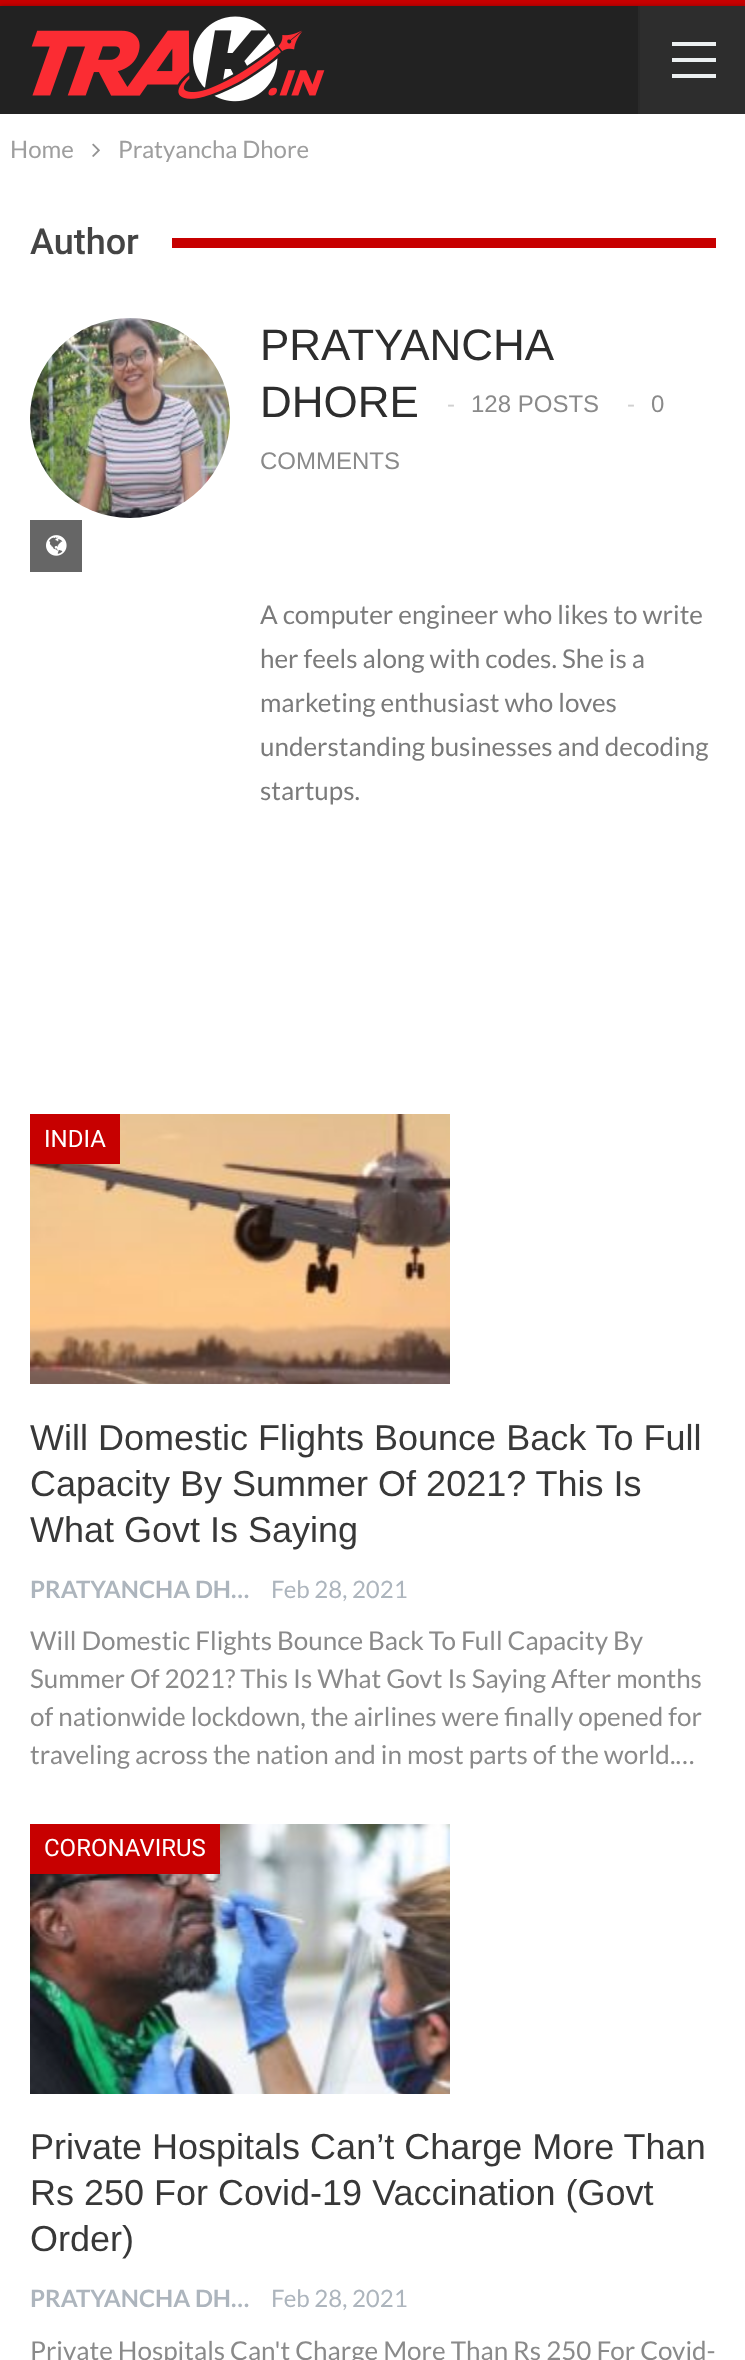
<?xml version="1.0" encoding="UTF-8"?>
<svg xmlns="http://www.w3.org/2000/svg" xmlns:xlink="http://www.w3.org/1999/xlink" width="745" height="2360">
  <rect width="100%" height="100%" fill="#c70000" />
  <rect y="6" width="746" height="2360" fill="#000000" fill-opacity="0.27" filter="blur(2px)" />
  <rect y="114" width="745" height="2246" fill="#ffffff" />
  <rect y="6" width="638" height="108" fill="#222222" />
  <image x="31" y="16" width="294" height="86" xlink:href="image1.png" />
  <rect x="640" y="6" width="105" height="108" fill="#2d2d2d" />
  <rect x="638" y="6" width="2" height="108" fill="#2a2a2a" />
  <rect x="672" y="58" width="44" height="4" fill="#ecf0f1" />
  <rect x="672" y="42" width="44" height="4" fill="#ecf0f1" />
  <rect x="672" y="74" width="44" height="4" fill="#ecf0f1" />
  <image x="92" y="143" width="8" height="14" xlink:href="image2.png" />
  <rect x="172" y="238" width="544" height="10" fill="#c70000" />
  <image x="30" y="318" width="200" height="200" xlink:href="image3.png" />
  <rect x="30" y="520" width="52" height="52" fill="#666666" />
  <image x="46" y="535" width="21" height="21" xlink:href="image4.png" />
  <image x="30" y="1114" width="420" height="270" xlink:href="image5.png" />
  <rect x="30" y="1114" width="90" height="50" fill="#c70000" />
  <image x="30" y="1824" width="420" height="270" xlink:href="image6.png" />
  <rect x="30" y="1824" width="190" height="50" fill="#c70000" />
  <text x="10" y="158" style="font-family: Lato; font-size: 24px; fill: #9e9e9e">Home</text>
  <text x="118" y="158" style="font-family: Lato; font-size: 24px; fill: #9e9e9e">Pratyancha Dhore</text>
  <text x="30" y="254" style="font-family: Roboto; font-size: 36px; font-weight: 500; fill: #444444">Author</text>
  <text x="260" y="360" style="font-family: Liberation Sans; font-size: 44px; fill: #2d2d2d">PRATYANCHA</text>
  <text x="260" y="417" style="font-family: Liberation Sans; font-size: 44px; fill: #2d2d2d">DHORE</text>
  <text x="447" y="412" style="font-family: Liberation Sans; font-size: 24px; fill: #d0d0d0">-</text>
  <text x="471" y="412" style="font-family: Liberation Sans; font-size: 24px; fill: #8a8a8a">128 POSTS</text>
  <text x="627" y="412" style="font-family: Liberation Sans; font-size: 24px; fill: #d0d0d0">-</text>
  <text x="651" y="412" style="font-family: Liberation Sans; font-size: 24px; fill: #8a8a8a">0</text>
  <text x="260" y="469" style="font-family: Liberation Sans; font-size: 24px; fill: #8a8a8a">COMMENTS</text>
  <text x="260" y="624" style="font-family: Lato; font-size: 26px; fill: #7b7b7b">A computer engineer who likes to write</text>
  <text x="260" y="668" style="font-family: Lato; font-size: 26px; fill: #7b7b7b">her feels along with codes. She is a</text>
  <text x="260" y="712" style="font-family: Lato; font-size: 26px; fill: #7b7b7b">marketing enthusiast who loves</text>
  <text x="260" y="756" style="font-family: Lato; font-size: 26px; fill: #7b7b7b">understanding businesses and decoding</text>
  <text x="260" y="800" style="font-family: Lato; font-size: 26px; fill: #7b7b7b">startups.</text>
  <text x="44" y="1147" style="font-family: Roboto; font-size: 24px; fill: #ffffff">INDIA</text>
  <text x="30" y="1450" style="font-family: Liberation Sans; font-size: 36px; fill: #383838">Will Domestic Flights Bounce Back To Full</text>
  <text x="30" y="1496" style="font-family: Liberation Sans; font-size: 36px; fill: #383838">Capacity By Summer Of 2021? This Is</text>
  <text x="30" y="1542" style="font-family: Liberation Sans; font-size: 36px; fill: #383838">What Govt Is Saying</text>
  <text x="30" y="1598" style="font-family: Lato; font-size: 24px; font-weight: bold; fill: #adb5bd">PRATYANCHA DH…</text>
  <text x="271" y="1598" style="font-family: Lato; font-size: 24px; fill: #adb5bd">Feb 28, 2021</text>
  <text x="30" y="1650" style="font-family: Lato; font-size: 26px; fill: #8a8a8a">Will Domestic Flights Bounce Back To Full Capacity By</text>
  <text x="30" y="1688" style="font-family: Lato; font-size: 26px; fill: #8a8a8a">Summer Of 2021? This Is What Govt Is Saying After months</text>
  <text x="30" y="1726" style="font-family: Lato; font-size: 26px; fill: #8a8a8a">of nationwide lockdown, the airlines were finally opened for</text>
  <text x="30" y="1764" style="font-family: Lato; font-size: 26px; fill: #8a8a8a">traveling across the nation and in most parts of the world.…</text>
  <text x="44" y="1856" style="font-family: Roboto; font-size: 24px; fill: #ffffff">CORONAVIRUS</text>
  <text x="30" y="2159" style="font-family: Liberation Sans; font-size: 36px; fill: #383838">Private Hospitals Can’t Charge More Than</text>
  <text x="30" y="2205" style="font-family: Liberation Sans; font-size: 36px; fill: #383838">Rs 250 For Covid-19 Vaccination (Govt</text>
  <text x="30" y="2251" style="font-family: Liberation Sans; font-size: 36px; fill: #383838">Order)</text>
  <text x="30" y="2307" style="font-family: Lato; font-size: 24px; font-weight: bold; fill: #adb5bd">PRATYANCHA DH…</text>
  <text x="271" y="2307" style="font-family: Lato; font-size: 24px; fill: #adb5bd">Feb 28, 2021</text>
  <text x="30" y="2360" style="font-family: Lato; font-size: 26px; fill: #8a8a8a">Private Hospitals Can't Charge More Than Rs 250 For Covid-</text>
</svg>
